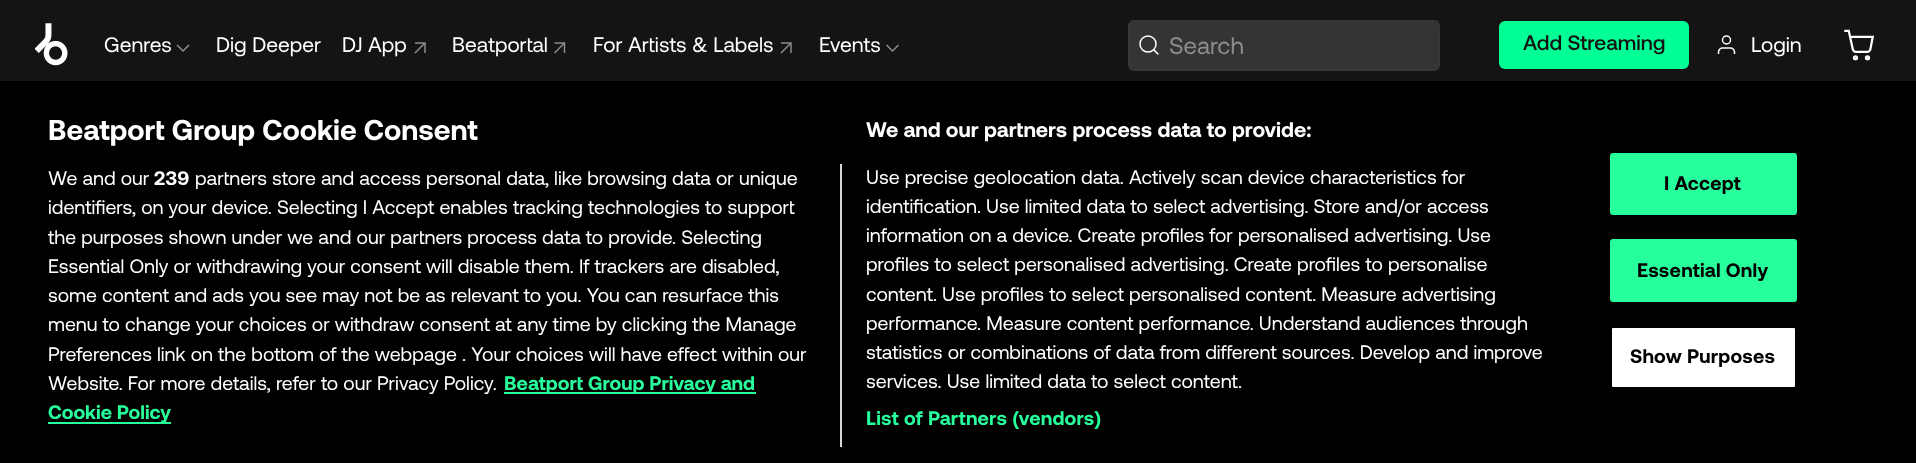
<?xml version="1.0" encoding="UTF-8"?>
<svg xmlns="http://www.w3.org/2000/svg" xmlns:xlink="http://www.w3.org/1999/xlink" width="1916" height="463">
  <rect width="100%" height="100%" fill="#141414" />
  <image x="35" y="23" width="33" height="43" xlink:href="image1.png" />
  <image x="176" y="44" width="14" height="8" xlink:href="image2.png" />
  <image x="414" y="42" width="12" height="12" xlink:href="image3.png" />
  <image x="554" y="42" width="12" height="12" xlink:href="image4.png" />
  <image x="780" y="42" width="12" height="12" xlink:href="image3.png" />
  <image x="886" y="44" width="13" height="8" xlink:href="image5.png" />
  <rect x="1129" y="21" width="310" height="49" rx="5" fill="#343434" stroke="#383838" stroke-width="2" />
  <image x="1139" y="35" width="20" height="20" xlink:href="image6.png" />
  <rect x="1169" y="21" width="270" height="48" fill="#343434" />
  <rect x="1499" y="21" width="190" height="48" rx="6" fill="#01ff95" />
  <image x="1717" y="35" width="19" height="19" xlink:href="image7.png" />
  <image x="1844" y="29" width="30" height="32" xlink:href="image8.png" />
  <rect y="81" width="1916" height="382" fill="#000000" />
  <rect x="840" y="164" width="2" height="283" fill="#d8d8d8" />
  <rect x="504" y="392" width="252" height="2" fill="#27ff9c" />
  <rect x="48" y="422" width="123" height="2" fill="#27ff9c" />
  <rect x="1611" y="154" width="185" height="60" rx="2" fill="#27ff9c" stroke="#27ff9c" stroke-width="2" />
  <rect x="1611" y="240" width="185" height="61" rx="2" fill="#27ff9c" stroke="#27ff9c" stroke-width="2" />
  <rect x="1611" y="327" width="185" height="61" rx="2" fill="#ffffff" stroke="#000000" stroke-width="2" />
  <text x="104" y="52" style="font-family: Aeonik; font-size: 21px; fill: #ffffff">Genres</text>
  <text x="216" y="52" style="font-family: Aeonik; font-size: 21px; fill: #ffffff">Dig Deeper</text>
  <text x="342" y="52" style="font-family: Aeonik; font-size: 21px; fill: #ffffff">DJ App</text>
  <text x="452" y="52" style="font-family: Aeonik; font-size: 21px; fill: #ffffff">Beatportal</text>
  <text x="593" y="52" style="font-family: Aeonik; font-size: 21px; fill: #ffffff">For Artists &amp; Labels</text>
  <text x="819" y="52" style="font-family: Aeonik; font-size: 21px; fill: #ffffff">Events</text>
  <text x="1169" y="54" style="font-family: Aeonik; font-size: 24px; fill: #8c8c8c">Search</text>
  <text x="1523" y="50" style="font-family: Aeonik; font-size: 21px; font-weight: 500; fill: #141414">Add Streaming</text>
  <text x="1751" y="52" style="font-family: Aeonik; font-size: 21px; fill: #ffffff">Login</text>
  <text x="48" y="140" style="font-family: Aeonik; font-size: 28.75px; font-weight: bold; fill: #ffffff">Beatport Group Cookie Consent</text>
  <text x="866" y="137" style="font-family: Aeonik; font-size: 21.1px; font-weight: bold; fill: #ffffff">We and our partners process data to provide:</text>
  <text x="866" y="184" style="font-family: Aeonik; font-size: 19.5px; fill: #ffffff">Use precise geolocation data. Actively scan device characteristics for</text>
  <text x="866" y="213" style="font-family: Aeonik; font-size: 19.5px; fill: #ffffff">identification. Use limited data to select advertising. Store and/or access</text>
  <text x="866" y="242" style="font-family: Aeonik; font-size: 19.5px; fill: #ffffff">information on a device. Create profiles for personalised advertising. Use</text>
  <text x="866" y="271" style="font-family: Aeonik; font-size: 19.5px; fill: #ffffff">profiles to select personalised advertising. Create profiles to personalise</text>
  <text x="866" y="301" style="font-family: Aeonik; font-size: 19.5px; fill: #ffffff">content. Use profiles to select personalised content. Measure advertising</text>
  <text x="866" y="330" style="font-family: Aeonik; font-size: 19.5px; fill: #ffffff">performance. Measure content performance. Understand audiences through</text>
  <text x="866" y="359" style="font-family: Aeonik; font-size: 19.5px; fill: #ffffff">statistics or combinations of data from different sources. Develop and improve</text>
  <text x="866" y="388" style="font-family: Aeonik; font-size: 19.5px; fill: #ffffff">services. Use limited data to select content.</text>
  <text x="866" y="425" style="font-family: Aeonik; font-size: 19.5px; font-weight: bold; letter-spacing: 0.2px; fill: #27ff9c">List of Partners (vendors)</text>
  <text x="48" y="185" style="font-family: Aeonik; font-size: 19.5px; fill: #ffffff">We and our</text>
  <text x="154" y="185" style="font-family: Aeonik; font-size: 19.5px; font-weight: bold; fill: #ffffff">239</text>
  <text x="195" y="185" style="font-family: Aeonik; font-size: 19.5px; fill: #ffffff">partners store and access personal data, like browsing data or unique</text>
  <text x="48" y="214" style="font-family: Aeonik; font-size: 19.5px; fill: #ffffff">identifiers, on your device. Selecting I Accept enables tracking technologies to support</text>
  <text x="48" y="244" style="font-family: Aeonik; font-size: 19.5px; fill: #ffffff">the purposes shown under we and our partners process data to provide. Selecting</text>
  <text x="48" y="273" style="font-family: Aeonik; font-size: 19.5px; fill: #ffffff">Essential Only or withdrawing your consent will disable them. If trackers are disabled,</text>
  <text x="48" y="302" style="font-family: Aeonik; font-size: 19.5px; fill: #ffffff">some content and ads you see may not be as relevant to you. You can resurface this</text>
  <text x="48" y="331" style="font-family: Aeonik; font-size: 19.5px; fill: #ffffff">menu to change your choices or withdraw consent at any time by clicking the Manage</text>
  <text x="48" y="361" style="font-family: Aeonik; font-size: 19.5px; fill: #ffffff">Preferences link on the bottom of the webpage . Your choices will have effect within our</text>
  <text x="48" y="390" style="font-family: Aeonik; font-size: 19.5px; fill: #ffffff">Website. For more details, refer to our Privacy Policy.</text>
  <text x="504" y="390" style="font-family: Aeonik; font-size: 19.5px; font-weight: bold; fill: #27ff9c">Beatport Group Privacy and</text>
  <text x="48" y="419" style="font-family: Aeonik; font-size: 19.5px; font-weight: bold; fill: #27ff9c">Cookie Policy</text>
  <text x="1664" y="190" style="font-family: Aeonik; font-size: 19.5px; font-weight: bold; letter-spacing: 0.2px; fill: #000000">I Accept</text>
  <text x="1637" y="277" style="font-family: Aeonik; font-size: 19.5px; font-weight: bold; letter-spacing: 0.2px; fill: #000000">Essential Only</text>
  <text x="1630" y="363" style="font-family: Aeonik; font-size: 19.5px; font-weight: bold; letter-spacing: 0.2px; fill: #000000">Show Purposes</text>
</svg>
